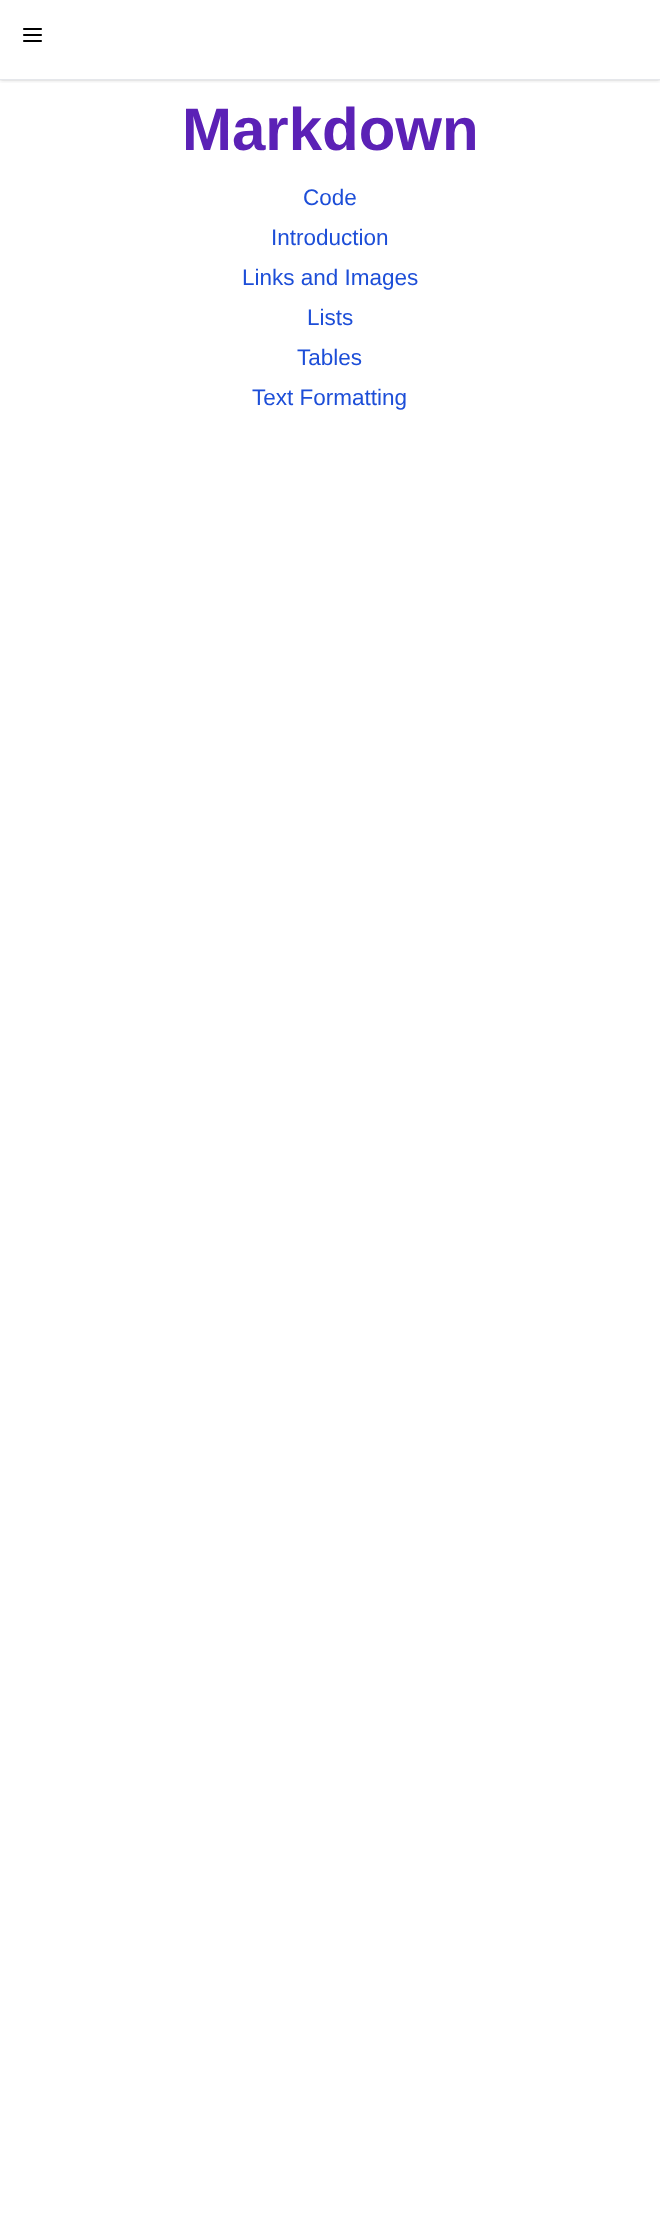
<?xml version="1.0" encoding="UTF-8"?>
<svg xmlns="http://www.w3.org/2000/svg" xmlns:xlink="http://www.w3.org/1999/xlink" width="660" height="2225">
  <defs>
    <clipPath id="clip1"><rect x="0" y="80" width="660" height="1" /></clipPath>
    <clipPath id="clip2"><rect x="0" y="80" width="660" height="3" /></clipPath>
  </defs>
  <rect width="100%" height="100%" fill="#ffffff" />
  <g clip-path="url(#clip1)">
    <rect y="1" width="660" height="80" fill="#000000" fill-opacity="0.06" filter="blur(1px)" />
  </g>
  <g clip-path="url(#clip2)">
    <rect y="1" width="660" height="80" fill="#000000" fill-opacity="0.1" filter="blur(2px)" />
  </g>
  <rect y="79" width="660" height="1" fill="#e5e7eb" />
  <path d="M 24 29 h 17 m -17 6 h 17 m -17 6 h 17" fill="none" stroke="#000000" stroke-width="2.1" stroke-linecap="round" stroke-linejoin="round" />
  <text x="182" y="150" style="font-family: Liberation Sans; font-size: 60px; font-weight: bold; fill: #5b21b6">Markdown</text>
  <text x="303" y="205" style="font-family: Liberation Sans; font-size: 22.5px; fill: #1d4ed8">Code</text>
  <text x="271" y="245" style="font-family: Liberation Sans; font-size: 22.5px; fill: #1d4ed8">Introduction</text>
  <text x="242" y="285" style="font-family: Liberation Sans; font-size: 22.5px; fill: #1d4ed8">Links and Images</text>
  <text x="307" y="325" style="font-family: Liberation Sans; font-size: 22.5px; fill: #1d4ed8">Lists</text>
  <text x="297" y="365" style="font-family: Liberation Sans; font-size: 22.5px; fill: #1d4ed8">Tables</text>
  <text x="252" y="405" style="font-family: Liberation Sans; font-size: 22.5px; fill: #1d4ed8">Text Formatting</text>
</svg>
